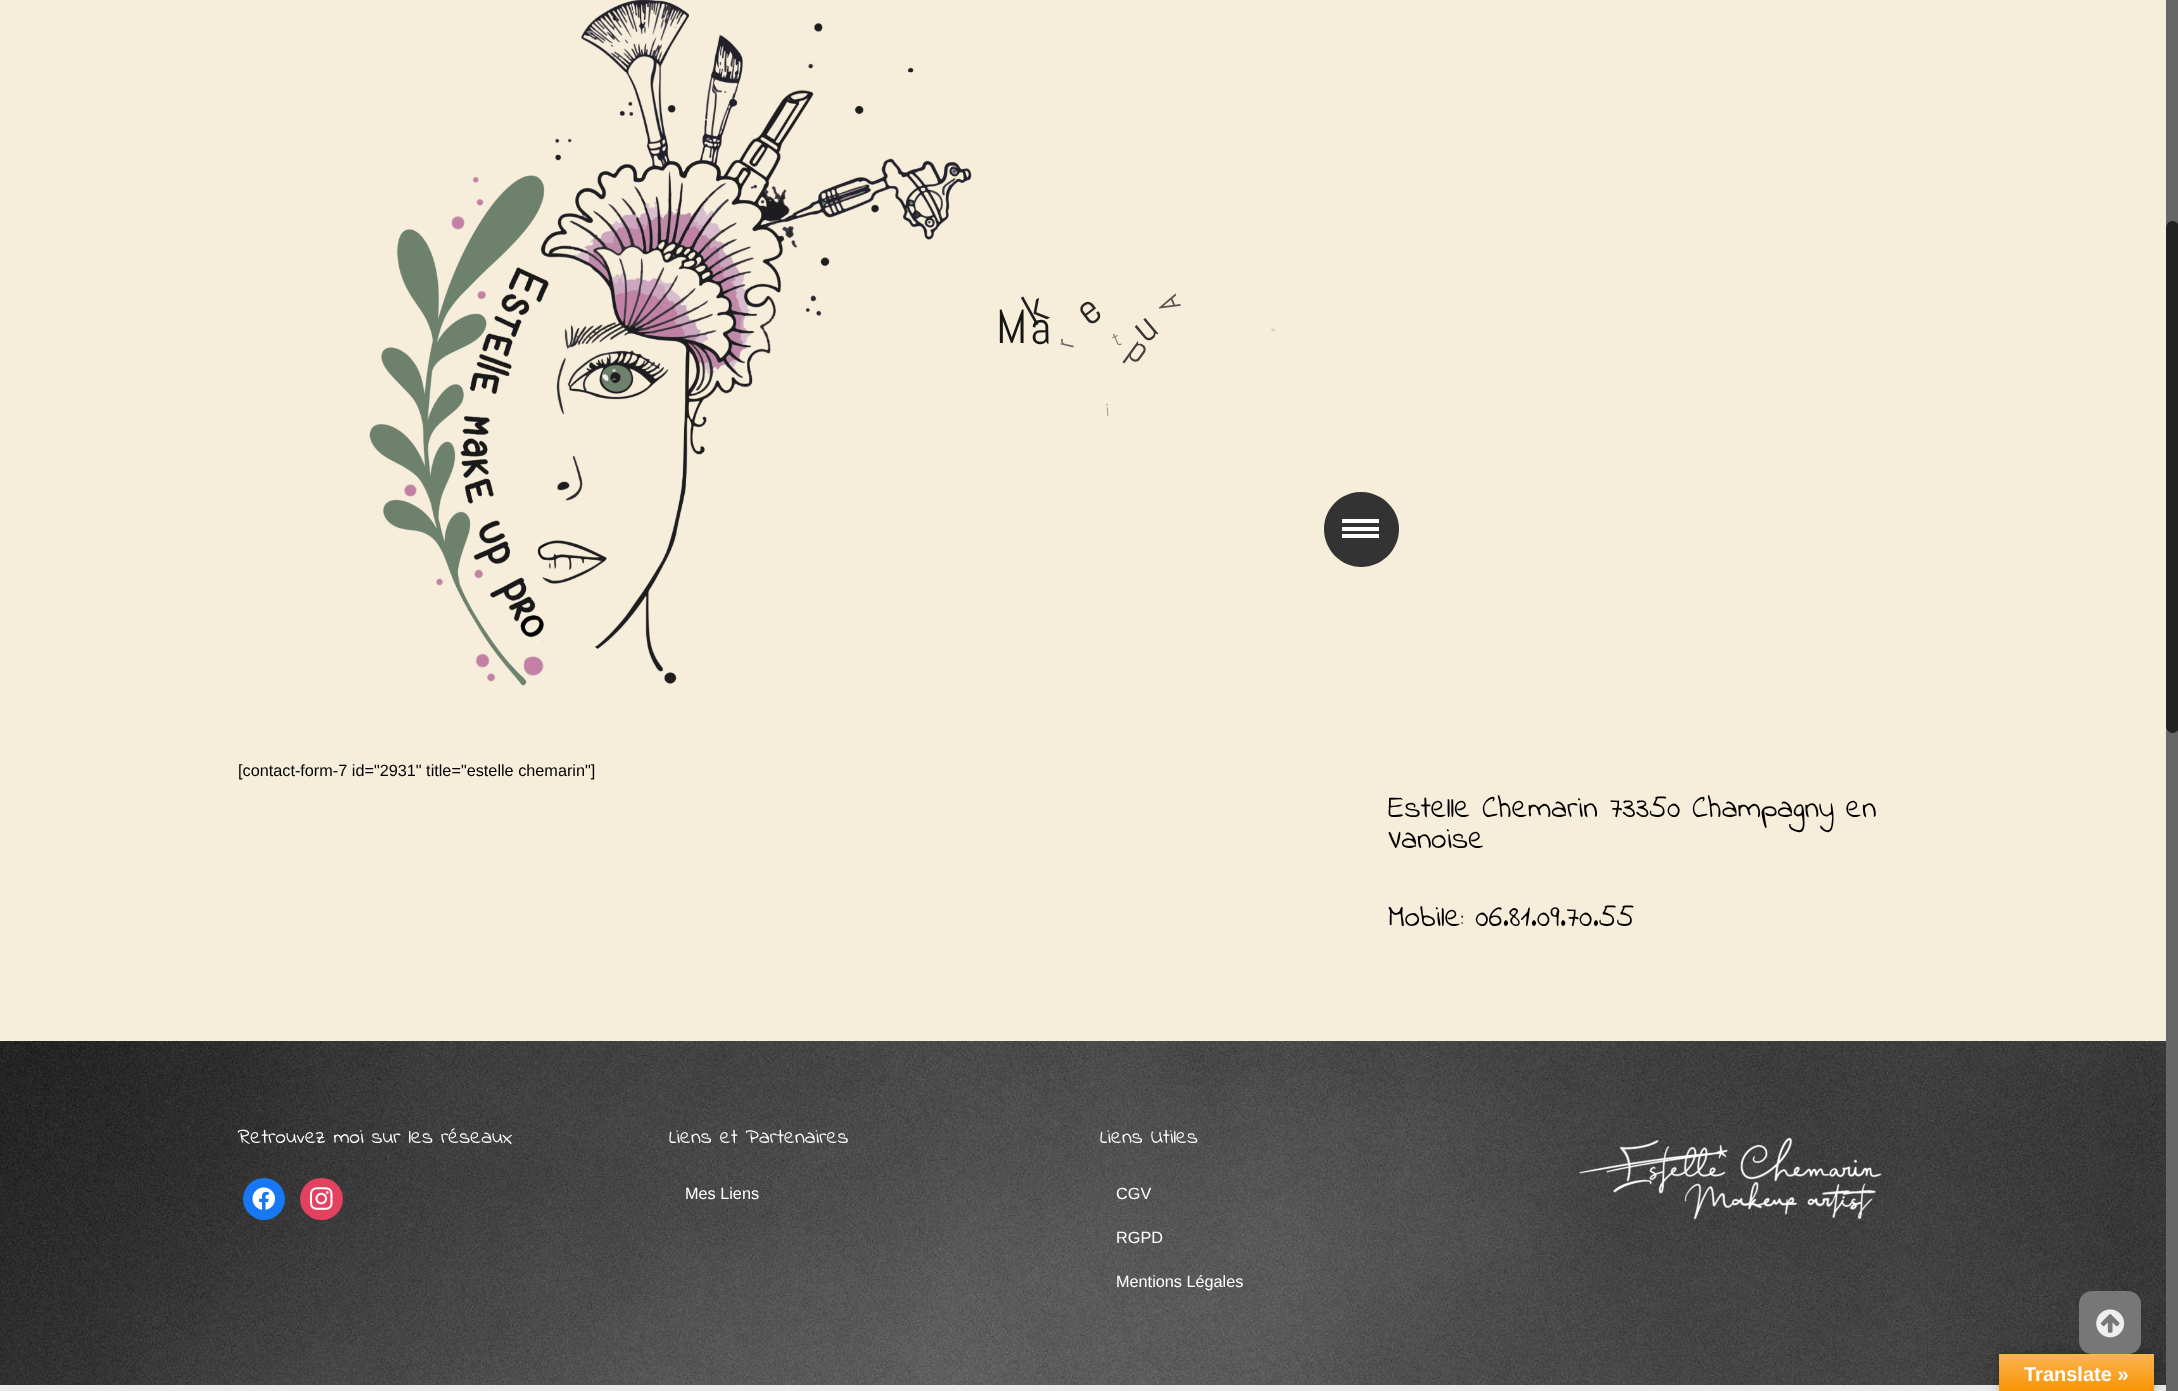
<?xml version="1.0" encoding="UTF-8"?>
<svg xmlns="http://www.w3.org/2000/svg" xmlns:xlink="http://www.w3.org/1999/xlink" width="2178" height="1391">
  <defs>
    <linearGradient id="g1" gradientUnits="userSpaceOnUse" x1="2076" y1="1354" x2="2076" y2="1391"><stop offset="0" stop-color="#fbb450" /><stop offset="1" stop-color="#f89406" /></linearGradient>
  </defs>
  <rect width="100%" height="100%" fill="#f6eddb" />
  <image x="369" y="0" width="603" height="686" xlink:href="image1.png" />
  <path d="M 1361 492 c 21 0 38 17 38 37 c 0 21 -17 38 -38 38 c -20 0 -37 -17 -37 -38 c 0 -20 16 -37 37 -37 z" fill="#333333" />
  <rect x="1342" y="519" width="37" height="4" fill="#ffffff" />
  <rect x="1342" y="527" width="37" height="4" fill="#ffffff" />
  <rect x="1342" y="534" width="37" height="4" fill="#ffffff" />
  <image x="0" y="1041" width="2166" height="344" xlink:href="image2.png" />
  <circle cx="264" cy="1199" r="21" fill="#1877f2" />
  <image x="252" y="1187" width="23" height="23" xlink:href="image3.png" />
  <rect x="300" y="1178" width="43" height="42" rx="21" fill="#e4405f" />
  <image x="310" y="1187" width="23" height="23" xlink:href="image4.png" />
  <image x="1579" y="1137" width="303" height="83" xlink:href="image5.png" />
  <rect y="1386" width="2166" height="5" fill="#eaeaea" />
  <rect y="1385" width="2166" height="1" fill="#ececec" />
  <rect x="2166" width="12" height="1391" fill="#666666" />
  <rect x="2166" y="221" width="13" height="512" rx="6.5" fill="#222222" />
  <rect x="1999" y="1354" width="155" height="37" fill="#000000" fill-opacity="0.3" filter="blur(5.5px)" />
  <rect x="2079" y="1291" width="62" height="63" rx="13" fill="#777777" />
  <image x="2096" y="1309" width="29" height="29" xlink:href="image6.png" />
  <rect x="1999" y="1354" width="155" height="37" fill="url(#g1)" />
  <text x="996" y="343" style="font-family: Abel; font-size: 48px; fill: #161615">M</text>
  <text x="1033" y="327" transform="rotate(-29.1 1033 327)" style="font-family: Abel; font-size: 45px; fill: #21201e">k</text>
  <text x="1089" y="327" transform="rotate(-37.3 1089 327)" style="font-family: Abel; font-size: 43px; fill: #2b2927">e</text>
  <text x="1030" y="344" transform="rotate(-1 1030 344)" style="font-family: Abel; font-size: 47px; fill: #161615">a</text>
  <text x="1181" y="306" transform="rotate(-113.8 1181 306)" style="font-family: Abel; font-size: 30px; letter-spacing: 2px; fill: #57544e">A</text>
  <text x="1274" y="332" transform="rotate(-58.3 1274 332)" style="font-family: Abel; font-size: 7px; letter-spacing: 3px; fill: #b6b0a3">s</text>
  <text x="1073" y="349" transform="rotate(-76.6 1073 349)" style="font-family: Abel; font-size: 27px; fill: #6e6a63">r</text>
  <text x="1116" y="347" transform="rotate(-23.6 1116 347)" style="font-family: Abel; font-size: 21px; fill: #8a857b">t</text>
  <text x="1106" y="416" transform="rotate(-3.9 1106 416)" style="font-family: Abel; font-size: 17px; fill: #a29d91">i</text>
  <text x="1146" y="344" transform="rotate(-39.9 1146 344)" style="font-family: Abel; font-size: 41px; fill: #363431">u</text>
  <text x="1125" y="355" transform="rotate(35.8 1125 355)" style="font-family: Abel; font-size: 37px; fill: #45423e">p</text>
  <text x="238" y="776" style="font-family: Liberation Sans; font-size: 16.25px; fill: #000000">[contact-form-7 id="2931" title="estelle chemarin"]</text>
  <text x="1388" y="817" style="font-family: Indie Flower; font-size: 31.25px; fill: #000000">Estelle Chemarin 73350 Champagny en</text>
  <text x="1388" y="848" style="font-family: Indie Flower; font-size: 31.25px; fill: #000000">Vanoise</text>
  <text x="1388" y="926" style="font-family: Indie Flower; font-size: 31.25px; fill: #000000">Mobile: 06.81.09.70.55</text>
  <text x="238" y="1143" style="font-family: Indie Flower; font-size: 21.25px; fill: #ffffff">Retrouvez moi sur les réseaux</text>
  <text x="669" y="1143" style="font-family: Indie Flower; font-size: 21.25px; fill: #ffffff">Liens et Partenaires</text>
  <text x="685" y="1199" style="font-family: Liberation Sans; font-size: 16.25px; fill: #ffffff">Mes Liens</text>
  <text x="1100" y="1143" style="font-family: Indie Flower; font-size: 21.25px; fill: #ffffff">Liens Utiles</text>
  <text x="1116" y="1199" style="font-family: Liberation Sans; font-size: 16.25px; fill: #ffffff">CGV</text>
  <text x="1116" y="1243" style="font-family: Liberation Sans; font-size: 16.25px; fill: #ffffff">RGPD</text>
  <text x="1116" y="1287" style="font-family: Liberation Sans; font-size: 16.25px; fill: #ffffff">Mentions Légales</text>
  <text x="2024" y="1381" style="font-family: Liberation Sans; font-size: 20px; font-weight: bold; fill: #ffffff">Translate »</text>
</svg>
